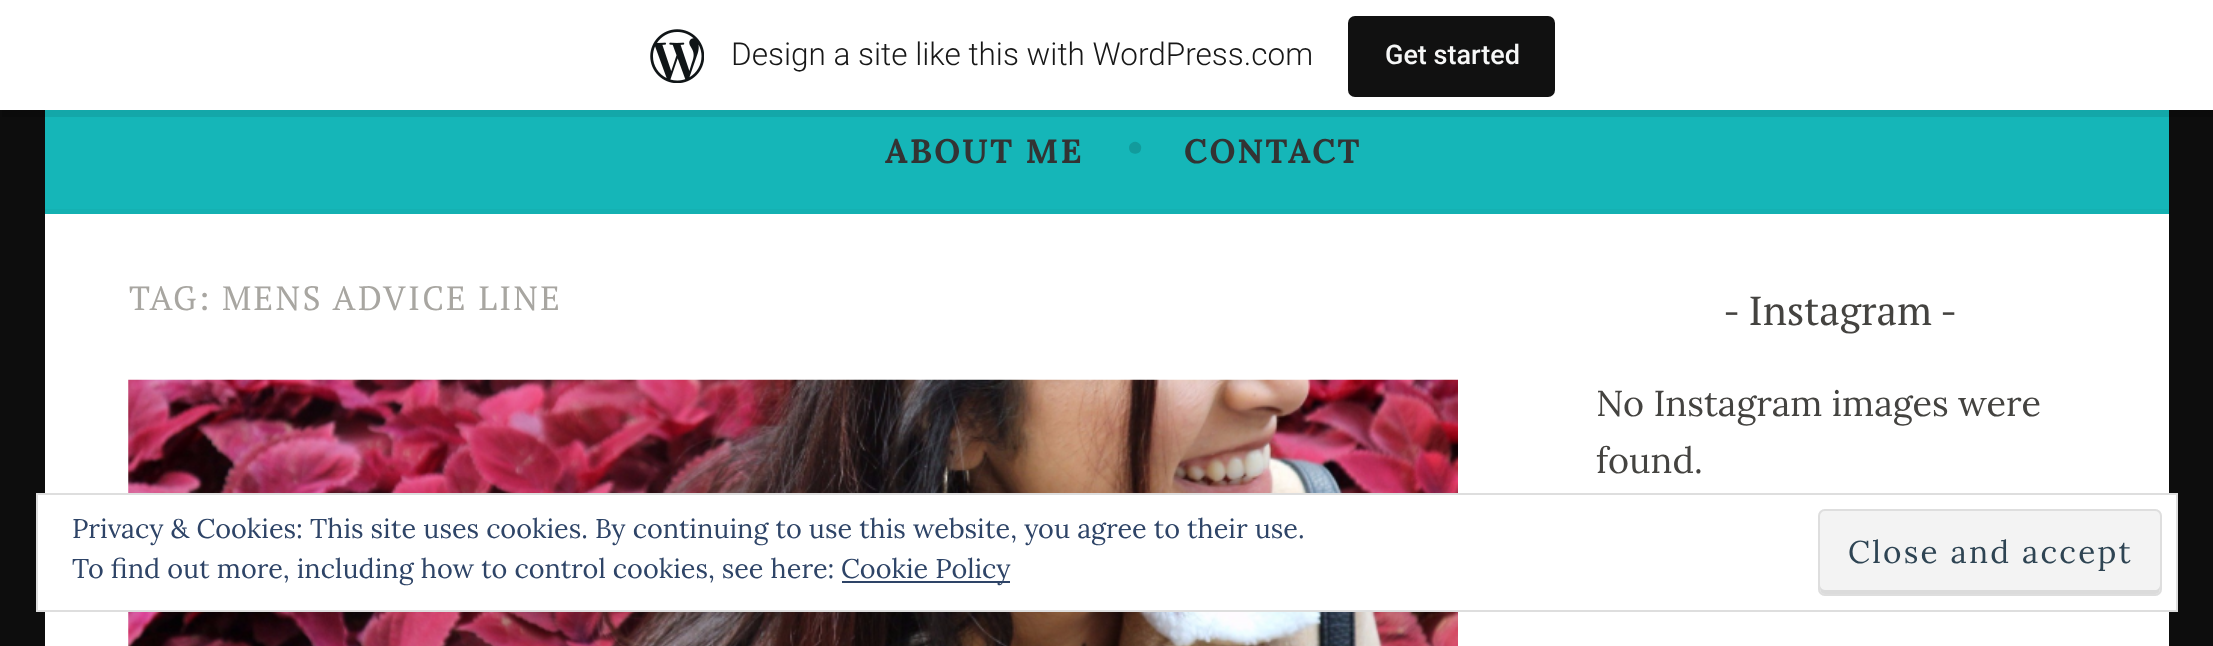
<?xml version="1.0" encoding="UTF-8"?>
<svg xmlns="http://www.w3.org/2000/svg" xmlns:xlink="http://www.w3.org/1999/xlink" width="2213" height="646">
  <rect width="100%" height="100%" fill="#0d0d0d" />
  <rect x="45" y="110" width="2124" height="99" fill="#15b6b8" />
  <path d="M 2 110 v 7 h 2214 v -110 h -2 v 103 z" fill="#000000" fill-opacity="0.08" />
  <rect width="2213" height="110" fill="#ffffff" />
  <image x="650" y="29" width="54" height="54" xlink:href="image1.png" />
  <rect x="1348" y="16" width="207" height="81" rx="7" fill="#111111" />
  <rect x="45" y="209" width="2124" height="5" fill="#14b1b2" />
  <rect x="45" y="214" width="2124" height="432" fill="#ffffff" />
  <image x="128" y="379" width="1330" height="267" xlink:href="image2.png" />
  <rect x="37" y="494" width="2140" height="117" fill="#ffffff" stroke="#dedede" stroke-width="2" />
  <rect x="842" y="581" width="168" height="2" fill="#2e4467" />
  <rect x="1818" y="509" width="344" height="87" rx="7" fill="#f3f3f3" />
  <path d="M 1820 585 c 0 4 0 9 5 9 h 330 c 5 0 5 -5 5 -9 c 0 2 -2 5 -4 5 h -331 c -3 0 -5 -3 -5 -5 z" fill="#dbdbdb" />
  <rect x="1819" y="510" width="342" height="85" rx="6" fill="none" stroke="#dedede" stroke-width="2" />
  <text x="731" y="65" style="font-family: Roboto; font-size: 31.5px; font-weight: 300; fill: #171717">Design a site like this with WordPress.com</text>
  <text x="1385" y="64" style="font-family: Roboto; font-size: 27px; font-weight: 500; fill: #f6f7f7">Get started</text>
  <text x="885" y="163" style="font-family: Lora; font-size: 33.75px; font-weight: bold; letter-spacing: 2.25px; fill: #333333">ABOUT ME</text>
  <text x="1127" y="163" style="font-family: Lora; font-size: 40.5px; fill: #129b9c">•</text>
  <text x="1184" y="163" style="font-family: Lora; font-size: 33.75px; font-weight: bold; letter-spacing: 2.25px; fill: #333333">CONTACT</text>
  <text x="129" y="310" style="font-family: PT Serif; font-size: 33.75px; letter-spacing: 2.25px; fill: #a8a6a1">TAG: MENS ADVICE LINE</text>
  <text x="1723" y="325" style="font-family: PT Serif; font-size: 40.5px; fill: #444340">- Instagram</text>
  <text x="1940" y="325" style="font-family: PT Serif; font-size: 40.5px; fill: #444340">-</text>
  <text x="1596" y="416" style="font-family: Lora; font-size: 36px; fill: #444340">No Instagram images were</text>
  <text x="1596" y="473" style="font-family: Lora; font-size: 36px; fill: #444340">found.</text>
  <text x="72" y="538" style="font-family: Lora; font-size: 27px; fill: #2e4467">Privacy &amp; Cookies: This site uses cookies. By continuing to use this website, you agree to their use.</text>
  <text x="72" y="578" style="font-family: Lora; font-size: 27px; fill: #2e4467">To find out more, including how to control cookies, see here:</text>
  <text x="841" y="578" style="font-family: Lora; font-size: 27px; fill: #2e4467">Cookie Policy</text>
  <text x="1848" y="563" style="font-family: Lora; font-size: 31.5px; letter-spacing: 2.25px; fill: #2e4453">Close and accept</text>
</svg>
